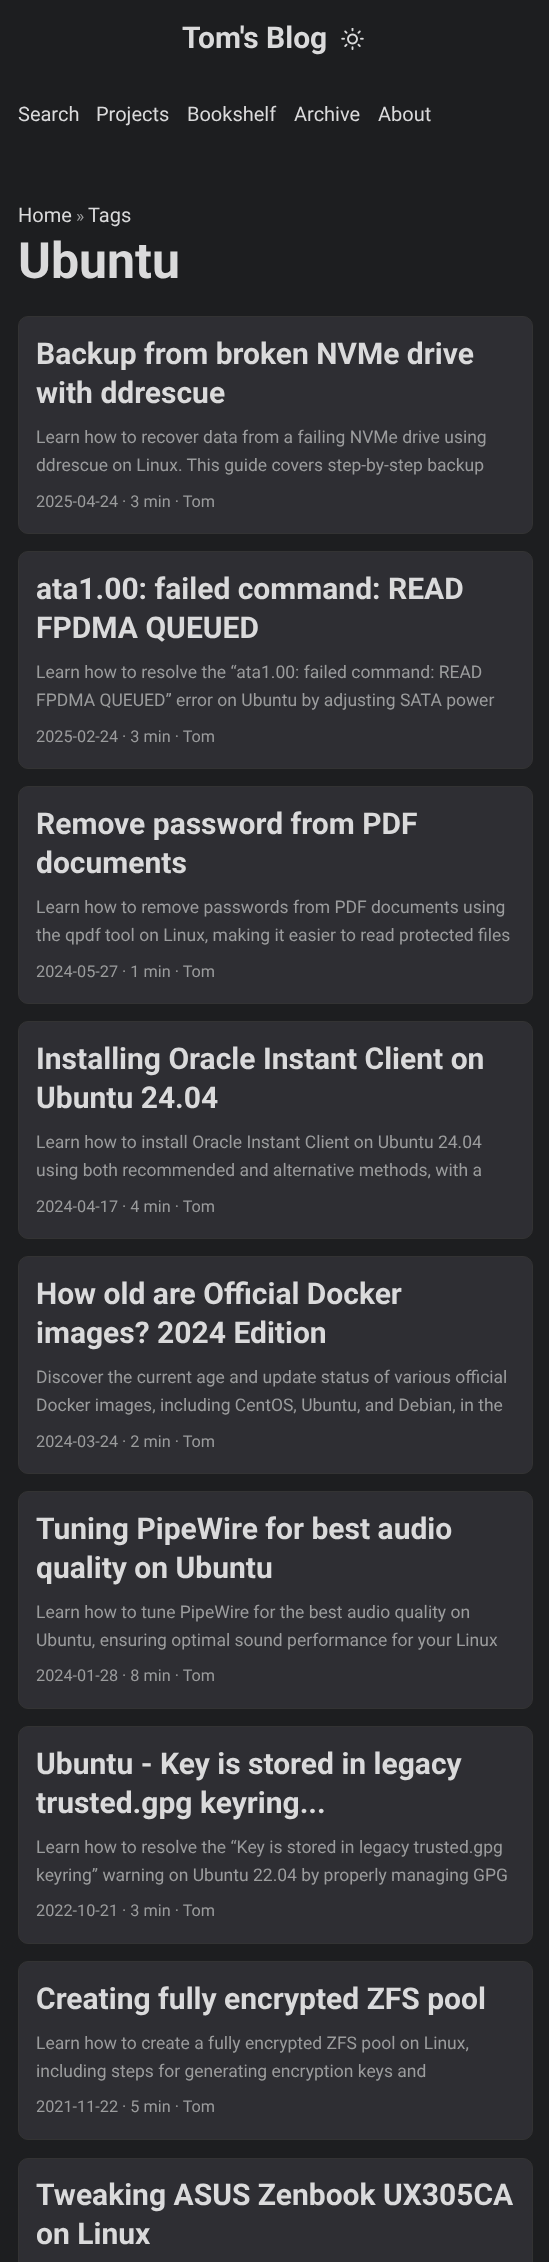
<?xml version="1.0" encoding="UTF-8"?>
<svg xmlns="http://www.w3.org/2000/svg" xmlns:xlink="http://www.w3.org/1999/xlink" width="549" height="2262">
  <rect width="100%" height="100%" fill="#1d1e20" />
  <image x="341" y="28" width="23" height="22" xlink:href="image1.png" />
  <rect x="18.5" y="316.5" width="514" height="217" rx="9.5" fill="#2e2e33" stroke="#333333" />
  <rect x="18.5" y="551.5" width="514" height="217" rx="9.5" fill="#2e2e33" stroke="#333333" />
  <rect x="18.5" y="786.5" width="514" height="217" rx="9.5" fill="#2e2e33" stroke="#333333" />
  <rect x="18.5" y="1021.5" width="514" height="217" rx="9.5" fill="#2e2e33" stroke="#333333" />
  <rect x="18.5" y="1256.5" width="514" height="217" rx="9.5" fill="#2e2e33" stroke="#333333" />
  <rect x="18.5" y="1491.5" width="514" height="217" rx="9.5" fill="#2e2e33" stroke="#333333" />
  <rect x="18.5" y="1726.5" width="514" height="217" rx="9.5" fill="#2e2e33" stroke="#333333" />
  <rect x="18.5" y="1961.5" width="514" height="178" rx="9.5" fill="#2e2e33" stroke="#333333" />
  <rect x="18.5" y="2158.5" width="514" height="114" rx="9.5" fill="#2e2e33" stroke="#333333" />
  <text x="182" y="48" style="font-family: Roboto; font-size: 30px; font-weight: bold; fill: #dadadb">Tom's Blog</text>
  <text x="18" y="121" style="font-family: Roboto; font-size: 20px; fill: #dadadb">Search</text>
  <text x="96" y="121" style="font-family: Roboto; font-size: 20px; fill: #dadadb">Projects</text>
  <text x="187" y="121" style="font-family: Roboto; font-size: 20px; fill: #dadadb">Bookshelf</text>
  <text x="294" y="121" style="font-family: Roboto; font-size: 20px; fill: #dadadb">Archive</text>
  <text x="378" y="121" style="font-family: Roboto; font-size: 20px; fill: #dadadb">About</text>
  <text x="18" y="222" style="font-family: Roboto; font-size: 20px; fill: #dadadb">Home</text>
  <text x="76" y="222" style="font-family: Roboto; font-size: 17.5px; fill: #9b9c9d">»</text>
  <text x="88" y="222" style="font-family: Roboto; font-size: 20px; fill: #dadadb">Tags</text>
  <text x="18" y="278" style="font-family: Roboto; font-size: 50px; font-weight: bold; fill: #dadadb">Ubuntu</text>
  <text x="36" y="364" style="font-family: Roboto; font-size: 30px; font-weight: bold; fill: #dadadb">Backup from broken NVMe drive</text>
  <text x="36" y="403" style="font-family: Roboto; font-size: 30px; font-weight: bold; fill: #dadadb">with ddrescue</text>
  <text x="36" y="443" style="font-family: Roboto; font-size: 17.5px; fill: #9b9c9d">Learn how to recover data from a failing NVMe drive using</text>
  <text x="36" y="471" style="font-family: Roboto; font-size: 17.5px; fill: #9b9c9d">ddrescue on Linux. This guide covers step-by-step backup</text>
  <text x="36" y="507" style="font-family: Roboto; font-size: 16.25px; fill: #9b9c9d">2025-04-24 · 3 min · Tom</text>
  <text x="36" y="599" style="font-family: Roboto; font-size: 30px; font-weight: bold; fill: #dadadb">ata1.00: failed command: READ</text>
  <text x="36" y="638" style="font-family: Roboto; font-size: 30px; font-weight: bold; fill: #dadadb">FPDMA QUEUED</text>
  <text x="36" y="678" style="font-family: Roboto; font-size: 17.5px; fill: #9b9c9d">Learn how to resolve the “ata1.00: failed command: READ</text>
  <text x="36" y="706" style="font-family: Roboto; font-size: 17.5px; fill: #9b9c9d">FPDMA QUEUED” error on Ubuntu by adjusting SATA power</text>
  <text x="36" y="742" style="font-family: Roboto; font-size: 16.25px; fill: #9b9c9d">2025-02-24 · 3 min · Tom</text>
  <text x="36" y="834" style="font-family: Roboto; font-size: 30px; font-weight: bold; fill: #dadadb">Remove password from PDF</text>
  <text x="36" y="873" style="font-family: Roboto; font-size: 30px; font-weight: bold; fill: #dadadb">documents</text>
  <text x="36" y="913" style="font-family: Roboto; font-size: 17.5px; fill: #9b9c9d">Learn how to remove passwords from PDF documents using</text>
  <text x="36" y="941" style="font-family: Roboto; font-size: 17.5px; fill: #9b9c9d">the qpdf tool on Linux, making it easier to read protected files</text>
  <text x="36" y="977" style="font-family: Roboto; font-size: 16.25px; fill: #9b9c9d">2024-05-27 · 1 min · Tom</text>
  <text x="36" y="1069" style="font-family: Roboto; font-size: 30px; font-weight: bold; fill: #dadadb">Installing Oracle Instant Client on</text>
  <text x="36" y="1108" style="font-family: Roboto; font-size: 30px; font-weight: bold; fill: #dadadb">Ubuntu 24.04</text>
  <text x="36" y="1148" style="font-family: Roboto; font-size: 17.5px; fill: #9b9c9d">Learn how to install Oracle Instant Client on Ubuntu 24.04</text>
  <text x="36" y="1176" style="font-family: Roboto; font-size: 17.5px; fill: #9b9c9d">using both recommended and alternative methods, with a</text>
  <text x="36" y="1212" style="font-family: Roboto; font-size: 16.25px; fill: #9b9c9d">2024-04-17 · 4 min · Tom</text>
  <text x="36" y="1304" style="font-family: Roboto; font-size: 30px; font-weight: bold; fill: #dadadb">How old are Official Docker</text>
  <text x="36" y="1343" style="font-family: Roboto; font-size: 30px; font-weight: bold; fill: #dadadb">images? 2024 Edition</text>
  <text x="36" y="1383" style="font-family: Roboto; font-size: 17.5px; fill: #9b9c9d">Discover the current age and update status of various official</text>
  <text x="36" y="1411" style="font-family: Roboto; font-size: 17.5px; fill: #9b9c9d">Docker images, including CentOS, Ubuntu, and Debian, in the</text>
  <text x="36" y="1447" style="font-family: Roboto; font-size: 16.25px; fill: #9b9c9d">2024-03-24 · 2 min · Tom</text>
  <text x="36" y="1539" style="font-family: Roboto; font-size: 30px; font-weight: bold; fill: #dadadb">Tuning PipeWire for best audio</text>
  <text x="36" y="1578" style="font-family: Roboto; font-size: 30px; font-weight: bold; fill: #dadadb">quality on Ubuntu</text>
  <text x="36" y="1618" style="font-family: Roboto; font-size: 17.5px; fill: #9b9c9d">Learn how to tune PipeWire for the best audio quality on</text>
  <text x="36" y="1646" style="font-family: Roboto; font-size: 17.5px; fill: #9b9c9d">Ubuntu, ensuring optimal sound performance for your Linux</text>
  <text x="36" y="1681" style="font-family: Roboto; font-size: 16.25px; fill: #9b9c9d">2024-01-28 · 8 min · Tom</text>
  <text x="36" y="1774" style="font-family: Roboto; font-size: 30px; font-weight: bold; fill: #dadadb">Ubuntu - Key is stored in legacy</text>
  <text x="36" y="1813" style="font-family: Roboto; font-size: 30px; font-weight: bold; fill: #dadadb">trusted.gpg keyring...</text>
  <text x="36" y="1853" style="font-family: Roboto; font-size: 17.5px; fill: #9b9c9d">Learn how to resolve the “Key is stored in legacy trusted.gpg</text>
  <text x="36" y="1881" style="font-family: Roboto; font-size: 17.5px; fill: #9b9c9d">keyring” warning on Ubuntu 22.04 by properly managing GPG</text>
  <text x="36" y="1916" style="font-family: Roboto; font-size: 16.25px; fill: #9b9c9d">2022-10-21 · 3 min · Tom</text>
  <text x="36" y="2009" style="font-family: Roboto; font-size: 30px; font-weight: bold; fill: #dadadb">Creating fully encrypted ZFS pool</text>
  <text x="36" y="2049" style="font-family: Roboto; font-size: 17.5px; fill: #9b9c9d">Learn how to create a fully encrypted ZFS pool on Linux,</text>
  <text x="36" y="2077" style="font-family: Roboto; font-size: 17.5px; fill: #9b9c9d">including steps for generating encryption keys and</text>
  <text x="36" y="2112" style="font-family: Roboto; font-size: 16.25px; fill: #9b9c9d">2021-11-22 · 5 min · Tom</text>
  <text x="36" y="2205" style="font-family: Roboto; font-size: 30px; font-weight: bold; fill: #dadadb">Tweaking ASUS Zenbook UX305CA</text>
  <text x="36" y="2244" style="font-family: Roboto; font-size: 30px; font-weight: bold; fill: #dadadb">on Linux</text>
</svg>
